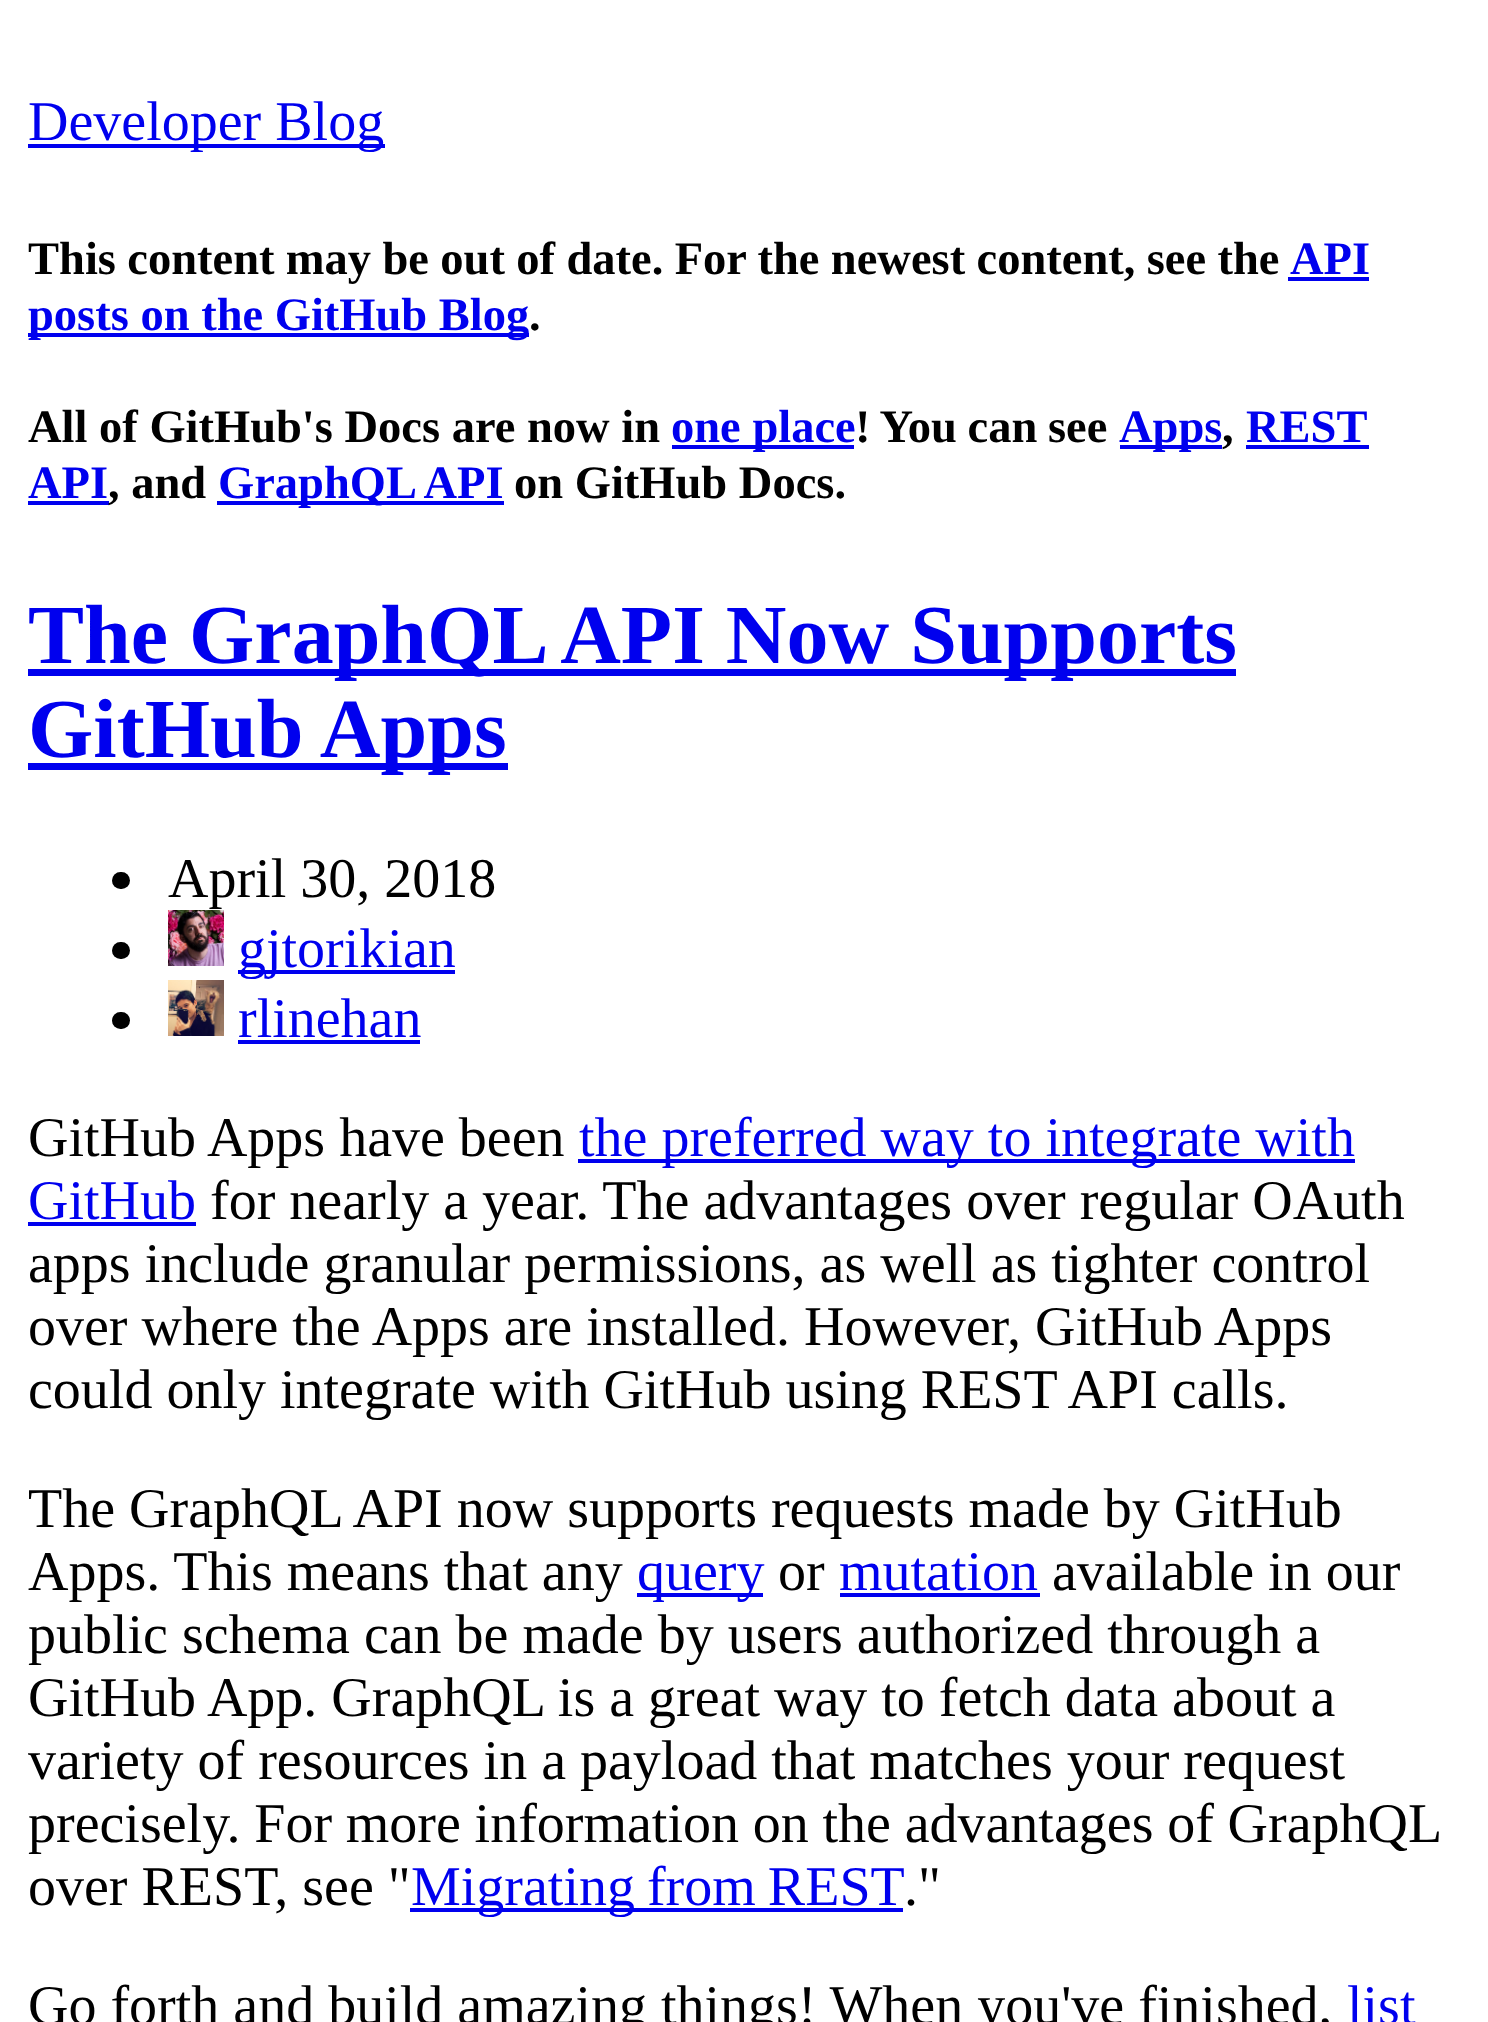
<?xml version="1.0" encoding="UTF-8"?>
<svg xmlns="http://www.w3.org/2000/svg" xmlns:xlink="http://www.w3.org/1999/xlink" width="1488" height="2022">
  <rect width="100%" height="100%" fill="#ffffff" />
  <rect x="28" y="144" width="357" height="4" fill="#0000ee" />
  <rect x="1288" y="277" width="81" height="4" fill="#0000ee" />
  <rect x="28" y="333" width="501" height="4" fill="#0000ee" />
  <rect x="672" y="445" width="182" height="4" fill="#0000ee" />
  <rect x="1120" y="445" width="102" height="4" fill="#0000ee" />
  <rect x="1246" y="445" width="123" height="4" fill="#0000ee" />
  <rect x="28" y="501" width="81" height="4" fill="#0000ee" />
  <rect x="217" y="501" width="287" height="4" fill="#0000ee" />
  <rect x="28" y="669" width="1208" height="7" fill="#0000ee" />
  <rect x="28" y="763" width="480" height="7" fill="#0000ee" />
  <rect x="112" y="872" width="18" height="17" rx="8.5" fill="#000000" />
  <rect x="112" y="942" width="18" height="17" rx="8.5" fill="#000000" />
  <image x="168" y="910" width="56" height="56" xlink:href="image1.png" />
  <rect x="238" y="970" width="217" height="4" fill="#0000ee" />
  <rect x="112" y="1012" width="18" height="17" rx="8.5" fill="#000000" />
  <image x="168" y="980" width="56" height="56" xlink:href="image2.png" />
  <rect x="238" y="1040" width="182" height="4" fill="#0000ee" />
  <rect x="578" y="1159" width="777" height="4" fill="#0000ee" />
  <rect x="28" y="1222" width="168" height="4" fill="#0000ee" />
  <rect x="637" y="1593" width="126" height="4" fill="#0000ee" />
  <rect x="840" y="1593" width="200" height="4" fill="#0000ee" />
  <rect x="410" y="1908" width="493" height="4" fill="#0000ee" />
  <text x="28" y="140" style="font-family: Liberation Serif; font-size: 56px; fill: #0000ee">Developer Blog</text>
  <text x="28" y="274" word-spacing="-0.25" style="font-family: Liberation Serif; font-size: 46.5px; font-weight: bold; fill: #000000">This content may be out of date. For the newest content, see the</text>
  <text x="1290" y="274" style="font-family: Liberation Serif; font-size: 46.5px; font-weight: bold; fill: #0000ee">API</text>
  <text x="28" y="330" style="font-family: Liberation Serif; font-size: 46.5px; font-weight: bold; fill: #0000ee">posts on the GitHub Blog</text>
  <text x="529" y="330" style="font-family: Liberation Serif; font-size: 46.5px; font-weight: bold; fill: #000000">.</text>
  <text x="28" y="442" style="font-family: Liberation Serif; font-size: 46.5px; font-weight: bold; fill: #000000">All of GitHub's Docs are now in</text>
  <text x="671" y="442" style="font-family: Liberation Serif; font-size: 46.5px; font-weight: bold; fill: #0000ee">one place</text>
  <text x="855" y="442" word-spacing="-1" style="font-family: Liberation Serif; font-size: 46.5px; font-weight: bold; fill: #000000">! You can see</text>
  <text x="1119" y="442" style="font-family: Liberation Serif; font-size: 46.5px; font-weight: bold; fill: #0000ee">Apps</text>
  <text x="1222" y="442" style="font-family: Liberation Serif; font-size: 46.5px; font-weight: bold; fill: #000000">,</text>
  <text x="1246" y="442" style="font-family: Liberation Serif; font-size: 46.5px; font-weight: bold; fill: #0000ee">REST</text>
  <text x="28" y="498" style="font-family: Liberation Serif; font-size: 46.5px; font-weight: bold; fill: #0000ee">API</text>
  <text x="108" y="498" style="font-family: Liberation Serif; font-size: 46.5px; font-weight: bold; fill: #000000">, and</text>
  <text x="218" y="498" style="font-family: Liberation Serif; font-size: 46.5px; font-weight: bold; fill: #0000ee">GraphQL API</text>
  <text x="514" y="498" style="font-family: Liberation Serif; font-size: 46.5px; font-weight: bold; fill: #000000">on GitHub Docs.</text>
  <text x="28" y="663" style="font-family: Liberation Serif; font-size: 84px; font-weight: bold; fill: #0000ee">The GraphQL API Now Supports</text>
  <text x="28" y="757" style="font-family: Liberation Serif; font-size: 84px; font-weight: bold; fill: #0000ee">GitHub Apps</text>
  <text x="168" y="897" style="font-family: Liberation Serif; font-size: 56px; fill: #000000">April 30, 2018</text>
  <text x="238" y="967" style="font-family: Liberation Serif; font-size: 56px; fill: #0000ee">gjtorikian</text>
  <text x="238" y="1037" style="font-family: Liberation Serif; font-size: 56px; fill: #0000ee">rlinehan</text>
  <text x="28" y="1156" style="font-family: Liberation Serif; font-size: 56px; fill: #000000">GitHub Apps have been</text>
  <text x="579" y="1156" style="font-family: Liberation Serif; font-size: 56px; fill: #0000ee">the preferred way to integrate with</text>
  <text x="28" y="1219" style="font-family: Liberation Serif; font-size: 56px; fill: #0000ee">GitHub</text>
  <text x="210" y="1219" style="font-family: Liberation Serif; font-size: 56px; fill: #000000">for nearly a year. The advantages over regular OAuth</text>
  <text x="28" y="1282" style="font-family: Liberation Serif; font-size: 56px; fill: #000000">apps include granular permissions, as well as tighter control</text>
  <text x="28" y="1345" style="font-family: Liberation Serif; font-size: 56px; fill: #000000">over where the Apps are installed. However, GitHub Apps</text>
  <text x="28" y="1408" style="font-family: Liberation Serif; font-size: 56px; fill: #000000">could only integrate with GitHub using REST API calls.</text>
  <text x="28" y="1527" style="font-family: Liberation Serif; font-size: 56px; fill: #000000">The GraphQL API now supports requests made by GitHub</text>
  <text x="28" y="1590" style="font-family: Liberation Serif; font-size: 56px; fill: #000000">Apps. This means that any</text>
  <text x="637" y="1590" style="font-family: Liberation Serif; font-size: 56px; fill: #0000ee">query</text>
  <text x="778" y="1590" style="font-family: Liberation Serif; font-size: 56px; fill: #000000">or</text>
  <text x="839" y="1590" style="font-family: Liberation Serif; font-size: 56px; fill: #0000ee">mutation</text>
  <text x="1052" y="1590" style="font-family: Liberation Serif; font-size: 56px; fill: #000000">available in our</text>
  <text x="28" y="1653" style="font-family: Liberation Serif; font-size: 56px; fill: #000000">public schema can be made by users authorized through a</text>
  <text x="28" y="1716" style="font-family: Liberation Serif; font-size: 56px; fill: #000000">GitHub App. GraphQL is a great way to fetch data about a</text>
  <text x="28" y="1779" style="font-family: Liberation Serif; font-size: 56px; fill: #000000">variety of resources in a payload that matches your request</text>
  <text x="28" y="1842" word-spacing="-0.25" style="font-family: Liberation Serif; font-size: 56px; fill: #000000">precisely. For more information on the advantages of GraphQL</text>
  <text x="28" y="1905" style="font-family: Liberation Serif; font-size: 56px; fill: #000000">over REST, see "</text>
  <text x="411" y="1905" word-spacing="-2" style="font-family: Liberation Serif; font-size: 56px; fill: #0000ee">Migrating from REST</text>
  <text x="904" y="1905" style="font-family: Liberation Serif; font-size: 56px; fill: #000000">."</text>
  <text x="28" y="2024" style="font-family: Liberation Serif; font-size: 56px; fill: #000000">Go forth and build amazing things! When you've finished,</text>
  <text x="1347" y="2024" style="font-family: Liberation Serif; font-size: 56px; fill: #0000ee">list</text>
</svg>
